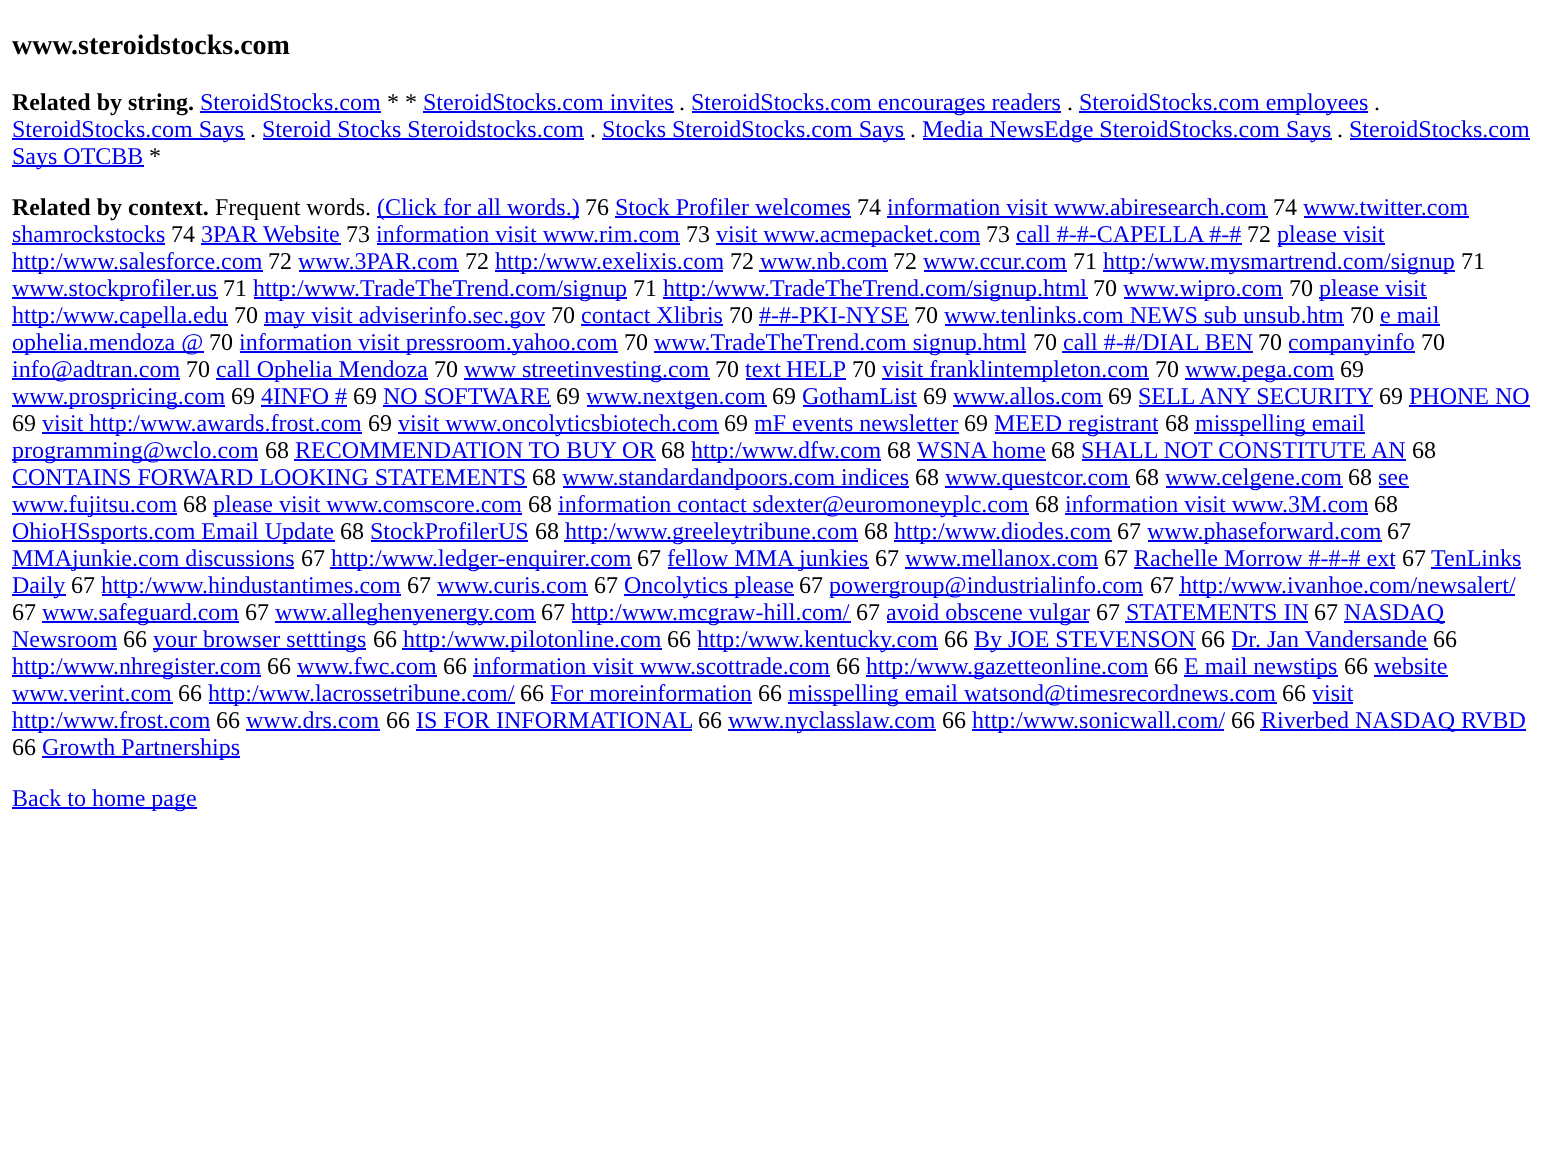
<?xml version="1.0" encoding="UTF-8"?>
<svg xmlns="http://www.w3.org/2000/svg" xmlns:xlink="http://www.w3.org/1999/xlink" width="1548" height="1159">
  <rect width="100%" height="100%" fill="#ffffff" />
  <rect x="200" y="111" width="181" height="2" fill="#0000ee" />
  <rect x="423" y="111" width="251" height="2" fill="#0000ee" />
  <rect x="692" y="111" width="369" height="2" fill="#0000ee" />
  <rect x="1079" y="111" width="289" height="2" fill="#0000ee" />
  <rect x="12" y="138" width="233" height="2" fill="#0000ee" />
  <rect x="263" y="138" width="321" height="2" fill="#0000ee" />
  <rect x="602" y="138" width="303" height="2" fill="#0000ee" />
  <rect x="923" y="138" width="409" height="2" fill="#0000ee" />
  <rect x="1350" y="138" width="180" height="2" fill="#0000ee" />
  <rect x="12" y="165" width="132" height="2" fill="#0000ee" />
  <rect x="377" y="216" width="202" height="2" fill="#0000ee" />
  <rect x="615" y="216" width="236" height="2" fill="#0000ee" />
  <rect x="887" y="216" width="381" height="2" fill="#0000ee" />
  <rect x="1304" y="216" width="165" height="2" fill="#0000ee" />
  <rect x="12" y="243" width="153" height="2" fill="#0000ee" />
  <rect x="201" y="243" width="140" height="2" fill="#0000ee" />
  <rect x="377" y="243" width="303" height="2" fill="#0000ee" />
  <rect x="716" y="243" width="264" height="2" fill="#0000ee" />
  <rect x="1016" y="243" width="226" height="2" fill="#0000ee" />
  <rect x="1278" y="243" width="107" height="2" fill="#0000ee" />
  <rect x="12" y="270" width="251" height="2" fill="#0000ee" />
  <rect x="299" y="270" width="160" height="2" fill="#0000ee" />
  <rect x="495" y="270" width="228" height="2" fill="#0000ee" />
  <rect x="759" y="270" width="129" height="2" fill="#0000ee" />
  <rect x="924" y="270" width="143" height="2" fill="#0000ee" />
  <rect x="1103" y="270" width="352" height="2" fill="#0000ee" />
  <rect x="12" y="297" width="206" height="2" fill="#0000ee" />
  <rect x="254" y="297" width="373" height="2" fill="#0000ee" />
  <rect x="663" y="297" width="425" height="2" fill="#0000ee" />
  <rect x="1124" y="297" width="159" height="2" fill="#0000ee" />
  <rect x="1319" y="297" width="108" height="2" fill="#0000ee" />
  <rect x="12" y="324" width="216" height="2" fill="#0000ee" />
  <rect x="264" y="324" width="281" height="2" fill="#0000ee" />
  <rect x="581" y="324" width="142" height="2" fill="#0000ee" />
  <rect x="759" y="324" width="150" height="2" fill="#0000ee" />
  <rect x="945" y="324" width="399" height="2" fill="#0000ee" />
  <rect x="1380" y="324" width="60" height="2" fill="#0000ee" />
  <rect x="12" y="351" width="192" height="2" fill="#0000ee" />
  <rect x="240" y="351" width="378" height="2" fill="#0000ee" />
  <rect x="654" y="351" width="372" height="2" fill="#0000ee" />
  <rect x="1062" y="351" width="191" height="2" fill="#0000ee" />
  <rect x="1289" y="351" width="126" height="2" fill="#0000ee" />
  <rect x="12" y="378" width="168" height="2" fill="#0000ee" />
  <rect x="216" y="378" width="212" height="2" fill="#0000ee" />
  <rect x="464" y="378" width="246" height="2" fill="#0000ee" />
  <rect x="746" y="378" width="100" height="2" fill="#0000ee" />
  <rect x="882" y="378" width="267" height="2" fill="#0000ee" />
  <rect x="1185" y="378" width="149" height="2" fill="#0000ee" />
  <rect x="12" y="405" width="213" height="2" fill="#0000ee" />
  <rect x="261" y="405" width="86" height="2" fill="#0000ee" />
  <rect x="383" y="405" width="168" height="2" fill="#0000ee" />
  <rect x="587" y="405" width="180" height="2" fill="#0000ee" />
  <rect x="803" y="405" width="114" height="2" fill="#0000ee" />
  <rect x="953" y="405" width="150" height="2" fill="#0000ee" />
  <rect x="1139" y="405" width="234" height="2" fill="#0000ee" />
  <rect x="1409" y="405" width="121" height="2" fill="#0000ee" />
  <rect x="42" y="432" width="320" height="2" fill="#0000ee" />
  <rect x="398" y="432" width="321" height="2" fill="#0000ee" />
  <rect x="755" y="432" width="204" height="2" fill="#0000ee" />
  <rect x="995" y="432" width="163" height="2" fill="#0000ee" />
  <rect x="1194" y="432" width="171" height="2" fill="#0000ee" />
  <rect x="12" y="459" width="246" height="2" fill="#0000ee" />
  <rect x="294" y="459" width="362" height="2" fill="#0000ee" />
  <rect x="692" y="459" width="189" height="2" fill="#0000ee" />
  <rect x="917" y="459" width="129" height="2" fill="#0000ee" />
  <rect x="1082" y="459" width="324" height="2" fill="#0000ee" />
  <rect x="12" y="486" width="515" height="2" fill="#0000ee" />
  <rect x="563" y="486" width="346" height="2" fill="#0000ee" />
  <rect x="945" y="486" width="185" height="2" fill="#0000ee" />
  <rect x="1166" y="486" width="177" height="2" fill="#0000ee" />
  <rect x="1379" y="486" width="30" height="2" fill="#0000ee" />
  <rect x="12" y="513" width="165" height="2" fill="#0000ee" />
  <rect x="213" y="513" width="309" height="2" fill="#0000ee" />
  <rect x="558" y="513" width="471" height="2" fill="#0000ee" />
  <rect x="1065" y="513" width="303" height="2" fill="#0000ee" />
  <rect x="12" y="540" width="323" height="2" fill="#0000ee" />
  <rect x="371" y="540" width="157" height="2" fill="#0000ee" />
  <rect x="564" y="540" width="294" height="2" fill="#0000ee" />
  <rect x="894" y="540" width="218" height="2" fill="#0000ee" />
  <rect x="1148" y="540" width="234" height="2" fill="#0000ee" />
  <rect x="12" y="567" width="282" height="2" fill="#0000ee" />
  <rect x="330" y="567" width="302" height="2" fill="#0000ee" />
  <rect x="668" y="567" width="201" height="2" fill="#0000ee" />
  <rect x="905" y="567" width="193" height="2" fill="#0000ee" />
  <rect x="1134" y="567" width="261" height="2" fill="#0000ee" />
  <rect x="1431" y="567" width="90" height="2" fill="#0000ee" />
  <rect x="12" y="594" width="54" height="2" fill="#0000ee" />
  <rect x="102" y="594" width="299" height="2" fill="#0000ee" />
  <rect x="437" y="594" width="151" height="2" fill="#0000ee" />
  <rect x="624" y="594" width="170" height="2" fill="#0000ee" />
  <rect x="830" y="594" width="313" height="2" fill="#0000ee" />
  <rect x="1179" y="594" width="336" height="2" fill="#0000ee" />
  <rect x="42" y="621" width="197" height="2" fill="#0000ee" />
  <rect x="275" y="621" width="261" height="2" fill="#0000ee" />
  <rect x="572" y="621" width="279" height="2" fill="#0000ee" />
  <rect x="887" y="621" width="202" height="2" fill="#0000ee" />
  <rect x="1125" y="621" width="183" height="2" fill="#0000ee" />
  <rect x="1344" y="621" width="101" height="2" fill="#0000ee" />
  <rect x="12" y="648" width="105" height="2" fill="#0000ee" />
  <rect x="153" y="648" width="213" height="2" fill="#0000ee" />
  <rect x="402" y="648" width="260" height="2" fill="#0000ee" />
  <rect x="698" y="648" width="240" height="2" fill="#0000ee" />
  <rect x="974" y="648" width="222" height="2" fill="#0000ee" />
  <rect x="1232" y="648" width="196" height="2" fill="#0000ee" />
  <rect x="12" y="675" width="249" height="2" fill="#0000ee" />
  <rect x="297" y="675" width="140" height="2" fill="#0000ee" />
  <rect x="473" y="675" width="357" height="2" fill="#0000ee" />
  <rect x="866" y="675" width="282" height="2" fill="#0000ee" />
  <rect x="1184" y="675" width="154" height="2" fill="#0000ee" />
  <rect x="1374" y="675" width="74" height="2" fill="#0000ee" />
  <rect x="12" y="702" width="161" height="2" fill="#0000ee" />
  <rect x="209" y="702" width="306" height="2" fill="#0000ee" />
  <rect x="551" y="702" width="201" height="2" fill="#0000ee" />
  <rect x="788" y="702" width="489" height="2" fill="#0000ee" />
  <rect x="1313" y="702" width="40" height="2" fill="#0000ee" />
  <rect x="12" y="729" width="198" height="2" fill="#0000ee" />
  <rect x="246" y="729" width="134" height="2" fill="#0000ee" />
  <rect x="416" y="729" width="276" height="2" fill="#0000ee" />
  <rect x="728" y="729" width="208" height="2" fill="#0000ee" />
  <rect x="972" y="729" width="252" height="2" fill="#0000ee" />
  <rect x="1260" y="729" width="266" height="2" fill="#0000ee" />
  <rect x="42" y="756" width="198" height="2" fill="#0000ee" />
  <rect x="12" y="807" width="185" height="2" fill="#0000ee" />
  <text x="12" y="54" style="font-family: Liberation Serif; font-size: 28px; font-weight: bold; fill: #000000">www.steroidstocks.com</text>
  <text x="12" y="110" style="font-family: Liberation Serif; font-size: 24px; font-weight: bold; fill: #000000">Related by string.</text>
  <text x="200" y="110" style="font-family: Liberation Serif; font-size: 24px; fill: #0000ee">SteroidStocks.com</text>
  <text x="387" y="110" style="font-family: Liberation Serif; font-size: 24px; fill: #000000">* *</text>
  <text x="423" y="110" style="font-family: Liberation Serif; font-size: 24px; fill: #0000ee">SteroidStocks.com invites</text>
  <text x="691" y="110" style="font-family: Liberation Serif; font-size: 24px; fill: #0000ee">SteroidStocks.com encourages readers</text>
  <text x="1079" y="110" style="font-family: Liberation Serif; font-size: 24px; fill: #0000ee">SteroidStocks.com employees</text>
  <text x="679" y="110" style="font-family: Liberation Serif; font-size: 24px; fill: #000000">.</text>
  <text x="1067" y="110" style="font-family: Liberation Serif; font-size: 24px; fill: #000000">.</text>
  <text x="1374" y="110" style="font-family: Liberation Serif; font-size: 24px; fill: #000000">.</text>
  <text x="12" y="137" style="font-family: Liberation Serif; font-size: 24px; fill: #0000ee">SteroidStocks.com Says</text>
  <text x="250" y="137" style="font-family: Liberation Serif; font-size: 24px; fill: #000000">.</text>
  <text x="262" y="137" style="font-family: Liberation Serif; font-size: 24px; fill: #0000ee">Steroid Stocks Steroidstocks.com</text>
  <text x="590" y="137" style="font-family: Liberation Serif; font-size: 24px; fill: #000000">.</text>
  <text x="602" y="137" style="font-family: Liberation Serif; font-size: 24px; fill: #0000ee">Stocks SteroidStocks.com Says</text>
  <text x="910" y="137" style="font-family: Liberation Serif; font-size: 24px; fill: #000000">.</text>
  <text x="922" y="137" style="font-family: Liberation Serif; font-size: 24px; fill: #0000ee">Media NewsEdge SteroidStocks.com Says</text>
  <text x="1337" y="137" style="font-family: Liberation Serif; font-size: 24px; fill: #000000">.</text>
  <text x="1349" y="137" style="font-family: Liberation Serif; font-size: 24px; fill: #0000ee">SteroidStocks.com</text>
  <text x="12" y="164" style="font-family: Liberation Serif; font-size: 24px; fill: #0000ee">Says OTCBB</text>
  <text x="149" y="164" style="font-family: Liberation Serif; font-size: 24px; fill: #000000">*</text>
  <text x="12" y="215" style="font-family: Liberation Serif; font-size: 24px; font-weight: bold; fill: #000000">Related by context.</text>
  <text x="215" y="215" style="font-family: Liberation Serif; font-size: 24px; fill: #000000">Frequent words.</text>
  <text x="377" y="215" style="font-family: Liberation Serif; font-size: 24px; fill: #0000ee">(Click for all words.)</text>
  <text x="585" y="215" style="font-family: Liberation Serif; font-size: 24px; fill: #000000">76</text>
  <text x="615" y="215" style="font-family: Liberation Serif; font-size: 24px; fill: #0000ee">Stock Profiler welcomes</text>
  <text x="857" y="215" style="font-family: Liberation Serif; font-size: 24px; fill: #000000">74</text>
  <text x="887" y="215" style="font-family: Liberation Serif; font-size: 24px; fill: #0000ee">information visit www.abiresearch.com</text>
  <text x="1273" y="215" style="font-family: Liberation Serif; font-size: 24px; fill: #000000">74</text>
  <text x="1303" y="215" style="font-family: Liberation Serif; font-size: 24px; fill: #0000ee">www.twitter.com</text>
  <text x="12" y="242" style="font-family: Liberation Serif; font-size: 24px; fill: #0000ee">shamrockstocks</text>
  <text x="171" y="242" style="font-family: Liberation Serif; font-size: 24px; fill: #000000">74</text>
  <text x="201" y="242" style="font-family: Liberation Serif; font-size: 24px; fill: #0000ee">3PAR Website</text>
  <text x="346" y="242" style="font-family: Liberation Serif; font-size: 24px; fill: #000000">73</text>
  <text x="376" y="242" style="font-family: Liberation Serif; font-size: 24px; fill: #0000ee">information visit www.rim.com</text>
  <text x="686" y="242" style="font-family: Liberation Serif; font-size: 24px; fill: #000000">73</text>
  <text x="716" y="242" style="font-family: Liberation Serif; font-size: 24px; fill: #0000ee">visit www.acmepacket.com</text>
  <text x="986" y="242" style="font-family: Liberation Serif; font-size: 24px; fill: #000000">73</text>
  <text x="1016" y="242" style="font-family: Liberation Serif; font-size: 24px; fill: #0000ee">call #-#-CAPELLA #-#</text>
  <text x="1247" y="242" style="font-family: Liberation Serif; font-size: 24px; fill: #000000">72</text>
  <text x="1277" y="242" style="font-family: Liberation Serif; font-size: 24px; fill: #0000ee">please visit</text>
  <text x="12" y="269" style="font-family: Liberation Serif; font-size: 24px; fill: #0000ee">http:/www.salesforce.com</text>
  <text x="268" y="269" style="font-family: Liberation Serif; font-size: 24px; fill: #000000">72</text>
  <text x="298" y="269" style="font-family: Liberation Serif; font-size: 24px; fill: #0000ee">www.3PAR.com</text>
  <text x="465" y="269" style="font-family: Liberation Serif; font-size: 24px; fill: #000000">72</text>
  <text x="495" y="269" style="font-family: Liberation Serif; font-size: 24px; fill: #0000ee">http:/www.exelixis.com</text>
  <text x="730" y="269" style="font-family: Liberation Serif; font-size: 24px; fill: #000000">72</text>
  <text x="760" y="269" style="font-family: Liberation Serif; font-size: 24px; fill: #0000ee">www.nb.com</text>
  <text x="893" y="269" style="font-family: Liberation Serif; font-size: 24px; fill: #000000">72</text>
  <text x="923" y="269" style="font-family: Liberation Serif; font-size: 24px; fill: #0000ee">www.ccur.com</text>
  <text x="1073" y="269" style="font-family: Liberation Serif; font-size: 24px; fill: #000000">71</text>
  <text x="1103" y="269" style="font-family: Liberation Serif; font-size: 24px; fill: #0000ee">http:/www.mysmartrend.com/signup</text>
  <text x="1461" y="269" style="font-family: Liberation Serif; font-size: 24px; fill: #000000">71</text>
  <text x="12" y="296" style="font-family: Liberation Serif; font-size: 24px; fill: #0000ee">www.stockprofiler.us</text>
  <text x="223" y="296" style="font-family: Liberation Serif; font-size: 24px; fill: #000000">71</text>
  <text x="253" y="296" style="font-family: Liberation Serif; font-size: 24px; fill: #0000ee">http:/www.TradeTheTrend.com/signup</text>
  <text x="633" y="296" style="font-family: Liberation Serif; font-size: 24px; fill: #000000">71</text>
  <text x="663" y="296" style="font-family: Liberation Serif; font-size: 24px; fill: #0000ee">http:/www.TradeTheTrend.com/signup.html</text>
  <text x="1093" y="296" style="font-family: Liberation Serif; font-size: 24px; fill: #000000">70</text>
  <text x="1123" y="296" style="font-family: Liberation Serif; font-size: 24px; fill: #0000ee">www.wipro.com</text>
  <text x="1289" y="296" style="font-family: Liberation Serif; font-size: 24px; fill: #000000">70</text>
  <text x="1319" y="296" style="font-family: Liberation Serif; font-size: 24px; fill: #0000ee">please visit</text>
  <text x="12" y="323" style="font-family: Liberation Serif; font-size: 24px; fill: #0000ee">http:/www.capella.edu</text>
  <text x="234" y="323" style="font-family: Liberation Serif; font-size: 24px; fill: #000000">70</text>
  <text x="264" y="323" style="font-family: Liberation Serif; font-size: 24px; fill: #0000ee">may visit adviserinfo.sec.gov</text>
  <text x="551" y="323" style="font-family: Liberation Serif; font-size: 24px; fill: #000000">70</text>
  <text x="581" y="323" style="font-family: Liberation Serif; font-size: 24px; fill: #0000ee">contact Xlibris</text>
  <text x="729" y="323" style="font-family: Liberation Serif; font-size: 24px; fill: #000000">70</text>
  <text x="759" y="323" style="font-family: Liberation Serif; font-size: 24px; fill: #0000ee">#-#-PKI-NYSE</text>
  <text x="914" y="323" style="font-family: Liberation Serif; font-size: 24px; fill: #000000">70</text>
  <text x="944" y="323" style="font-family: Liberation Serif; font-size: 24px; fill: #0000ee">www.tenlinks.com NEWS sub unsub.htm</text>
  <text x="1350" y="323" style="font-family: Liberation Serif; font-size: 24px; fill: #000000">70</text>
  <text x="1380" y="323" style="font-family: Liberation Serif; font-size: 24px; fill: #0000ee">e mail</text>
  <text x="12" y="350" style="font-family: Liberation Serif; font-size: 24px; fill: #0000ee">ophelia.mendoza @</text>
  <text x="209" y="350" style="font-family: Liberation Serif; font-size: 24px; fill: #000000">70</text>
  <text x="239" y="350" style="font-family: Liberation Serif; font-size: 24px; fill: #0000ee">information visit pressroom.yahoo.com</text>
  <text x="624" y="350" style="font-family: Liberation Serif; font-size: 24px; fill: #000000">70</text>
  <text x="654" y="350" style="font-family: Liberation Serif; font-size: 24px; fill: #0000ee">www.TradeTheTrend.com signup.html</text>
  <text x="1033" y="350" style="font-family: Liberation Serif; font-size: 24px; fill: #000000">70</text>
  <text x="1063" y="350" style="font-family: Liberation Serif; font-size: 24px; fill: #0000ee">call #-#/DIAL BEN</text>
  <text x="1258" y="350" style="font-family: Liberation Serif; font-size: 24px; fill: #000000">70</text>
  <text x="1288" y="350" style="font-family: Liberation Serif; font-size: 24px; fill: #0000ee">companyinfo</text>
  <text x="1421" y="350" style="font-family: Liberation Serif; font-size: 24px; fill: #000000">70</text>
  <text x="12" y="377" style="font-family: Liberation Serif; font-size: 24px; fill: #0000ee">info@adtran.com</text>
  <text x="186" y="377" style="font-family: Liberation Serif; font-size: 24px; fill: #000000">70</text>
  <text x="216" y="377" style="font-family: Liberation Serif; font-size: 24px; fill: #0000ee">call Ophelia Mendoza</text>
  <text x="434" y="377" style="font-family: Liberation Serif; font-size: 24px; fill: #000000">70</text>
  <text x="464" y="377" style="font-family: Liberation Serif; font-size: 24px; fill: #0000ee">www streetinvesting.com</text>
  <text x="715" y="377" style="font-family: Liberation Serif; font-size: 24px; fill: #000000">70</text>
  <text x="745" y="377" word-spacing="-1" style="font-family: Liberation Serif; font-size: 24px; fill: #0000ee">text HELP</text>
  <text x="852" y="377" style="font-family: Liberation Serif; font-size: 24px; fill: #000000">70</text>
  <text x="882" y="377" style="font-family: Liberation Serif; font-size: 24px; fill: #0000ee">visit franklintempleton.com</text>
  <text x="1155" y="377" style="font-family: Liberation Serif; font-size: 24px; fill: #000000">70</text>
  <text x="1185" y="377" style="font-family: Liberation Serif; font-size: 24px; fill: #0000ee">www.pega.com</text>
  <text x="1340" y="377" style="font-family: Liberation Serif; font-size: 24px; fill: #000000">69</text>
  <text x="12" y="404" style="font-family: Liberation Serif; font-size: 24px; fill: #0000ee">www.prospricing.com</text>
  <text x="231" y="404" style="font-family: Liberation Serif; font-size: 24px; fill: #000000">69</text>
  <text x="261" y="404" style="font-family: Liberation Serif; font-size: 24px; fill: #0000ee">4INFO #</text>
  <text x="353" y="404" style="font-family: Liberation Serif; font-size: 24px; fill: #000000">69</text>
  <text x="383" y="404" style="font-family: Liberation Serif; font-size: 24px; fill: #0000ee">NO SOFTWARE</text>
  <text x="556" y="404" style="font-family: Liberation Serif; font-size: 24px; fill: #000000">69</text>
  <text x="586" y="404" style="font-family: Liberation Serif; font-size: 24px; fill: #0000ee">www.nextgen.com</text>
  <text x="772" y="404" style="font-family: Liberation Serif; font-size: 24px; fill: #000000">69</text>
  <text x="802" y="404" style="font-family: Liberation Serif; font-size: 24px; fill: #0000ee">GothamList</text>
  <text x="923" y="404" style="font-family: Liberation Serif; font-size: 24px; fill: #000000">69</text>
  <text x="953" y="404" style="font-family: Liberation Serif; font-size: 24px; fill: #0000ee">www.allos.com</text>
  <text x="1108" y="404" style="font-family: Liberation Serif; font-size: 24px; fill: #000000">69</text>
  <text x="1138" y="404" style="font-family: Liberation Serif; font-size: 24px; fill: #0000ee">SELL ANY SECURITY</text>
  <text x="1379" y="404" style="font-family: Liberation Serif; font-size: 24px; fill: #000000">69</text>
  <text x="1409" y="404" style="font-family: Liberation Serif; font-size: 24px; fill: #0000ee">PHONE NO</text>
  <text x="12" y="431" style="font-family: Liberation Serif; font-size: 24px; fill: #000000">69</text>
  <text x="42" y="431" style="font-family: Liberation Serif; font-size: 24px; fill: #0000ee">visit http:/www.awards.frost.com</text>
  <text x="368" y="431" style="font-family: Liberation Serif; font-size: 24px; fill: #000000">69</text>
  <text x="398" y="431" style="font-family: Liberation Serif; font-size: 24px; fill: #0000ee">visit www.oncolyticsbiotech.com</text>
  <text x="724" y="431" style="font-family: Liberation Serif; font-size: 24px; fill: #000000">69</text>
  <text x="754" y="431" style="font-family: Liberation Serif; font-size: 24px; fill: #0000ee">mF events newsletter</text>
  <text x="964" y="431" style="font-family: Liberation Serif; font-size: 24px; fill: #000000">69</text>
  <text x="994" y="431" style="font-family: Liberation Serif; font-size: 24px; fill: #0000ee">MEED registrant</text>
  <text x="1165" y="431" style="font-family: Liberation Serif; font-size: 24px; fill: #000000">68</text>
  <text x="1195" y="431" style="font-family: Liberation Serif; font-size: 24px; fill: #0000ee">misspelling email</text>
  <text x="12" y="458" style="font-family: Liberation Serif; font-size: 24px; fill: #0000ee">programming@wclo.com</text>
  <text x="265" y="458" style="font-family: Liberation Serif; font-size: 24px; fill: #000000">68</text>
  <text x="295" y="458" style="font-family: Liberation Serif; font-size: 24px; fill: #0000ee">RECOMMENDATION TO BUY OR</text>
  <text x="661" y="458" style="font-family: Liberation Serif; font-size: 24px; fill: #000000">68</text>
  <text x="691" y="458" style="font-family: Liberation Serif; font-size: 24px; fill: #0000ee">http:/www.dfw.com</text>
  <text x="887" y="458" style="font-family: Liberation Serif; font-size: 24px; fill: #000000">68</text>
  <text x="917" y="458" style="font-family: Liberation Serif; font-size: 24px; fill: #0000ee">WSNA home</text>
  <text x="1051" y="458" style="font-family: Liberation Serif; font-size: 24px; fill: #000000">68</text>
  <text x="1081" y="458" style="font-family: Liberation Serif; font-size: 24px; fill: #0000ee">SHALL NOT CONSTITUTE AN</text>
  <text x="1412" y="458" style="font-family: Liberation Serif; font-size: 24px; fill: #000000">68</text>
  <text x="12" y="485" style="font-family: Liberation Serif; font-size: 24px; fill: #0000ee">CONTAINS FORWARD LOOKING STATEMENTS</text>
  <text x="532" y="485" style="font-family: Liberation Serif; font-size: 24px; fill: #000000">68</text>
  <text x="562" y="485" style="font-family: Liberation Serif; font-size: 24px; fill: #0000ee">www.standardandpoors.com indices</text>
  <text x="915" y="485" style="font-family: Liberation Serif; font-size: 24px; fill: #000000">68</text>
  <text x="945" y="485" style="font-family: Liberation Serif; font-size: 24px; fill: #0000ee">www.questcor.com</text>
  <text x="1135" y="485" style="font-family: Liberation Serif; font-size: 24px; fill: #000000">68</text>
  <text x="1165" y="485" style="font-family: Liberation Serif; font-size: 24px; fill: #0000ee">www.celgene.com</text>
  <text x="1348" y="485" style="font-family: Liberation Serif; font-size: 24px; fill: #000000">68</text>
  <text x="1378" y="485" style="font-family: Liberation Serif; font-size: 24px; fill: #0000ee">see</text>
  <text x="12" y="512" style="font-family: Liberation Serif; font-size: 24px; fill: #0000ee">www.fujitsu.com</text>
  <text x="183" y="512" style="font-family: Liberation Serif; font-size: 24px; fill: #000000">68</text>
  <text x="213" y="512" style="font-family: Liberation Serif; font-size: 24px; fill: #0000ee">please visit www.comscore.com</text>
  <text x="528" y="512" style="font-family: Liberation Serif; font-size: 24px; fill: #000000">68</text>
  <text x="558" y="512" style="font-family: Liberation Serif; font-size: 24px; fill: #0000ee">information contact sdexter@euromoneyplc.com</text>
  <text x="1035" y="512" style="font-family: Liberation Serif; font-size: 24px; fill: #000000">68</text>
  <text x="1065" y="512" style="font-family: Liberation Serif; font-size: 24px; fill: #0000ee">information visit www.3M.com</text>
  <text x="1374" y="512" style="font-family: Liberation Serif; font-size: 24px; fill: #000000">68</text>
  <text x="12" y="539" style="font-family: Liberation Serif; font-size: 24px; fill: #0000ee">OhioHSsports.com Email Update</text>
  <text x="340" y="539" style="font-family: Liberation Serif; font-size: 24px; fill: #000000">68</text>
  <text x="370" y="539" style="font-family: Liberation Serif; font-size: 24px; fill: #0000ee">StockProfilerUS</text>
  <text x="535" y="539" style="font-family: Liberation Serif; font-size: 24px; fill: #000000">68</text>
  <text x="565" y="539" style="font-family: Liberation Serif; font-size: 24px; fill: #0000ee">http:/www.greeleytribune.com</text>
  <text x="864" y="539" style="font-family: Liberation Serif; font-size: 24px; fill: #000000">68</text>
  <text x="894" y="539" style="font-family: Liberation Serif; font-size: 24px; fill: #0000ee">http:/www.diodes.com</text>
  <text x="1117" y="539" style="font-family: Liberation Serif; font-size: 24px; fill: #000000">67</text>
  <text x="1147" y="539" style="font-family: Liberation Serif; font-size: 24px; fill: #0000ee">www.phaseforward.com</text>
  <text x="1387" y="539" style="font-family: Liberation Serif; font-size: 24px; fill: #000000">67</text>
  <text x="12" y="566" style="font-family: Liberation Serif; font-size: 24px; fill: #0000ee">MMAjunkie.com discussions</text>
  <text x="301" y="566" style="font-family: Liberation Serif; font-size: 24px; fill: #000000">67</text>
  <text x="331" y="566" style="font-family: Liberation Serif; font-size: 24px; fill: #0000ee">http:/www.ledger-enquirer.com</text>
  <text x="637" y="566" style="font-family: Liberation Serif; font-size: 24px; fill: #000000">67</text>
  <text x="667" y="566" style="font-family: Liberation Serif; font-size: 24px; fill: #0000ee">fellow MMA junkies</text>
  <text x="875" y="566" style="font-family: Liberation Serif; font-size: 24px; fill: #000000">67</text>
  <text x="905" y="566" style="font-family: Liberation Serif; font-size: 24px; fill: #0000ee">www.mellanox.com</text>
  <text x="1104" y="566" style="font-family: Liberation Serif; font-size: 24px; fill: #000000">67</text>
  <text x="1134" y="566" style="font-family: Liberation Serif; font-size: 24px; fill: #0000ee">Rachelle Morrow #-#-# ext</text>
  <text x="1402" y="566" style="font-family: Liberation Serif; font-size: 24px; fill: #000000">67</text>
  <text x="1431" y="566" style="font-family: Liberation Serif; font-size: 24px; fill: #0000ee">TenLinks</text>
  <text x="12" y="593" style="font-family: Liberation Serif; font-size: 24px; fill: #0000ee">Daily</text>
  <text x="71" y="593" style="font-family: Liberation Serif; font-size: 24px; fill: #000000">67</text>
  <text x="101" y="593" style="font-family: Liberation Serif; font-size: 24px; fill: #0000ee">http:/www.hindustantimes.com</text>
  <text x="407" y="593" style="font-family: Liberation Serif; font-size: 24px; fill: #000000">67</text>
  <text x="437" y="593" style="font-family: Liberation Serif; font-size: 24px; fill: #0000ee">www.curis.com</text>
  <text x="594" y="593" style="font-family: Liberation Serif; font-size: 24px; fill: #000000">67</text>
  <text x="624" y="593" style="font-family: Liberation Serif; font-size: 24px; fill: #0000ee">Oncolytics please</text>
  <text x="799" y="593" style="font-family: Liberation Serif; font-size: 24px; fill: #000000">67</text>
  <text x="829" y="593" style="font-family: Liberation Serif; font-size: 24px; fill: #0000ee">powergroup@industrialinfo.com</text>
  <text x="1150" y="593" style="font-family: Liberation Serif; font-size: 24px; fill: #000000">67</text>
  <text x="1180" y="593" style="font-family: Liberation Serif; font-size: 24px; fill: #0000ee">http:/www.ivanhoe.com/newsalert/</text>
  <text x="12" y="620" style="font-family: Liberation Serif; font-size: 24px; fill: #000000">67</text>
  <text x="42" y="620" style="font-family: Liberation Serif; font-size: 24px; fill: #0000ee">www.safeguard.com</text>
  <text x="245" y="620" style="font-family: Liberation Serif; font-size: 24px; fill: #000000">67</text>
  <text x="275" y="620" style="font-family: Liberation Serif; font-size: 24px; fill: #0000ee">www.alleghenyenergy.com</text>
  <text x="541" y="620" style="font-family: Liberation Serif; font-size: 24px; fill: #000000">67</text>
  <text x="571" y="620" style="font-family: Liberation Serif; font-size: 24px; fill: #0000ee">http:/www.mcgraw-hill.com/</text>
  <text x="856" y="620" style="font-family: Liberation Serif; font-size: 24px; fill: #000000">67</text>
  <text x="886" y="620" style="font-family: Liberation Serif; font-size: 24px; fill: #0000ee">avoid obscene vulgar</text>
  <text x="1096" y="620" style="font-family: Liberation Serif; font-size: 24px; fill: #000000">67</text>
  <text x="1126" y="620" style="font-family: Liberation Serif; font-size: 24px; fill: #0000ee">STATEMENTS IN</text>
  <text x="1314" y="620" style="font-family: Liberation Serif; font-size: 24px; fill: #000000">67</text>
  <text x="1344" y="620" style="font-family: Liberation Serif; font-size: 24px; fill: #0000ee">NASDAQ</text>
  <text x="12" y="647" style="font-family: Liberation Serif; font-size: 24px; fill: #0000ee">Newsroom</text>
  <text x="123" y="647" style="font-family: Liberation Serif; font-size: 24px; fill: #000000">66</text>
  <text x="153" y="647" style="font-family: Liberation Serif; font-size: 24px; fill: #0000ee">your browser setttings</text>
  <text x="373" y="647" style="font-family: Liberation Serif; font-size: 24px; fill: #000000">66</text>
  <text x="403" y="647" style="font-family: Liberation Serif; font-size: 24px; fill: #0000ee">http:/www.pilotonline.com</text>
  <text x="667" y="647" style="font-family: Liberation Serif; font-size: 24px; fill: #000000">66</text>
  <text x="697" y="647" style="font-family: Liberation Serif; font-size: 24px; fill: #0000ee">http:/www.kentucky.com</text>
  <text x="944" y="647" style="font-family: Liberation Serif; font-size: 24px; fill: #000000">66</text>
  <text x="974" y="647" style="font-family: Liberation Serif; font-size: 24px; fill: #0000ee">By JOE STEVENSON</text>
  <text x="1201" y="647" style="font-family: Liberation Serif; font-size: 24px; fill: #000000">66</text>
  <text x="1231" y="647" style="font-family: Liberation Serif; font-size: 24px; fill: #0000ee">Dr. Jan Vandersande</text>
  <text x="1433" y="647" style="font-family: Liberation Serif; font-size: 24px; fill: #000000">66</text>
  <text x="12" y="674" style="font-family: Liberation Serif; font-size: 24px; fill: #0000ee">http:/www.nhregister.com</text>
  <text x="267" y="674" style="font-family: Liberation Serif; font-size: 24px; fill: #000000">66</text>
  <text x="297" y="674" style="font-family: Liberation Serif; font-size: 24px; fill: #0000ee">www.fwc.com</text>
  <text x="443" y="674" style="font-family: Liberation Serif; font-size: 24px; fill: #000000">66</text>
  <text x="473" y="674" style="font-family: Liberation Serif; font-size: 24px; fill: #0000ee">information visit www.scottrade.com</text>
  <text x="836" y="674" style="font-family: Liberation Serif; font-size: 24px; fill: #000000">66</text>
  <text x="866" y="674" style="font-family: Liberation Serif; font-size: 24px; fill: #0000ee">http:/www.gazetteonline.com</text>
  <text x="1154" y="674" style="font-family: Liberation Serif; font-size: 24px; fill: #000000">66</text>
  <text x="1184" y="674" style="font-family: Liberation Serif; font-size: 24px; fill: #0000ee">E mail newstips</text>
  <text x="1344" y="674" style="font-family: Liberation Serif; font-size: 24px; fill: #000000">66</text>
  <text x="1374" y="674" style="font-family: Liberation Serif; font-size: 24px; fill: #0000ee">website</text>
  <text x="12" y="701" style="font-family: Liberation Serif; font-size: 24px; fill: #0000ee">www.verint.com</text>
  <text x="178" y="701" style="font-family: Liberation Serif; font-size: 24px; fill: #000000">66</text>
  <text x="208" y="701" style="font-family: Liberation Serif; font-size: 24px; fill: #0000ee">http:/www.lacrossetribune.com/</text>
  <text x="520" y="701" style="font-family: Liberation Serif; font-size: 24px; fill: #000000">66</text>
  <text x="550" y="701" style="font-family: Liberation Serif; font-size: 24px; fill: #0000ee">For moreinformation</text>
  <text x="758" y="701" style="font-family: Liberation Serif; font-size: 24px; fill: #000000">66</text>
  <text x="788" y="701" style="font-family: Liberation Serif; font-size: 24px; fill: #0000ee">misspelling email watsond@timesrecordnews.com</text>
  <text x="1282" y="701" style="font-family: Liberation Serif; font-size: 24px; fill: #000000">66</text>
  <text x="1312" y="701" style="font-family: Liberation Serif; font-size: 24px; fill: #0000ee">visit</text>
  <text x="12" y="728" style="font-family: Liberation Serif; font-size: 24px; fill: #0000ee">http:/www.frost.com</text>
  <text x="216" y="728" style="font-family: Liberation Serif; font-size: 24px; fill: #000000">66</text>
  <text x="246" y="728" style="font-family: Liberation Serif; font-size: 24px; fill: #0000ee">www.drs.com</text>
  <text x="386" y="728" style="font-family: Liberation Serif; font-size: 24px; fill: #000000">66</text>
  <text x="416" y="728" style="font-family: Liberation Serif; font-size: 24px; fill: #0000ee">IS FOR INFORMATIONAL</text>
  <text x="698" y="728" style="font-family: Liberation Serif; font-size: 24px; fill: #000000">66</text>
  <text x="728" y="728" style="font-family: Liberation Serif; font-size: 24px; fill: #0000ee">www.nyclasslaw.com</text>
  <text x="942" y="728" style="font-family: Liberation Serif; font-size: 24px; fill: #000000">66</text>
  <text x="972" y="728" style="font-family: Liberation Serif; font-size: 24px; fill: #0000ee">http:/www.sonicwall.com/</text>
  <text x="1231" y="728" style="font-family: Liberation Serif; font-size: 24px; fill: #000000">66</text>
  <text x="1261" y="728" style="font-family: Liberation Serif; font-size: 24px; fill: #0000ee">Riverbed NASDAQ RVBD</text>
  <text x="12" y="755" style="font-family: Liberation Serif; font-size: 24px; fill: #000000">66</text>
  <text x="42" y="755" style="font-family: Liberation Serif; font-size: 24px; fill: #0000ee">Growth Partnerships</text>
  <text x="12" y="806" style="font-family: Liberation Serif; font-size: 24px; fill: #0000ee">Back to home page</text>
</svg>
